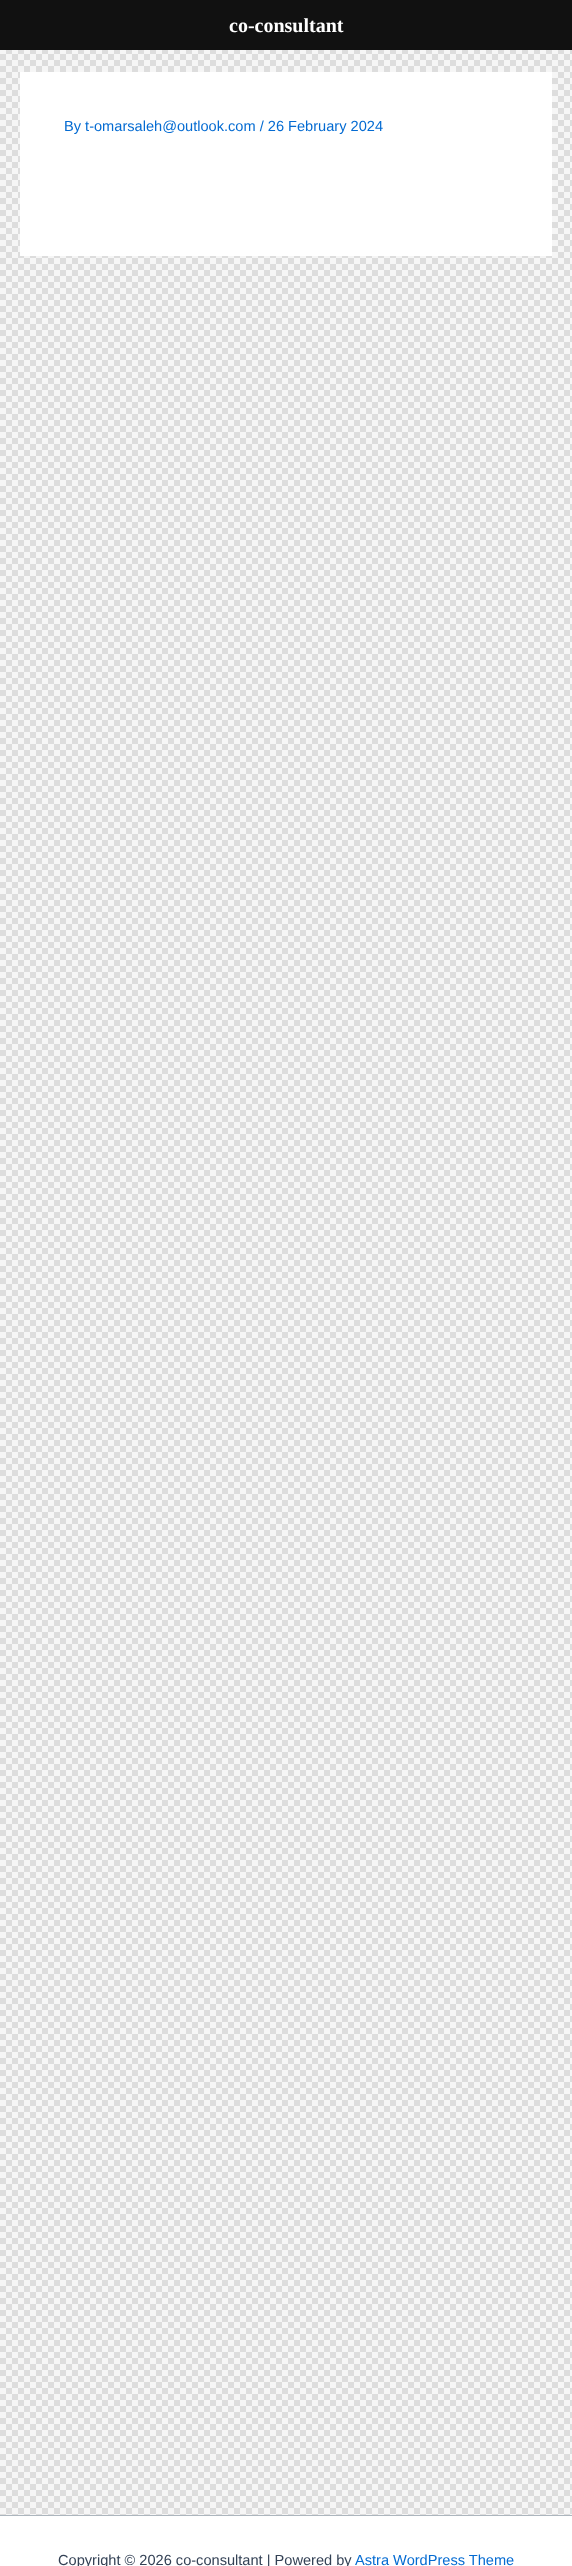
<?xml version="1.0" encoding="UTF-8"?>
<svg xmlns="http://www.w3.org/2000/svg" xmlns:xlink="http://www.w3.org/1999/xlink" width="572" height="2566">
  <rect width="100%" height="100%" fill="#ffffff" />
  <image x="0" y="50" width="572" height="2465" xlink:href="image1.png" />
  <rect width="572" height="50" fill="#111111" />
  <rect x="20" y="72" width="532" height="184" fill="#ffffff" />
  <rect y="2515" width="572" height="1" fill="#adb6be" />
  <text x="229" y="32" style="font-family: Liberation Serif; font-size: 20px; font-weight: bold; fill: #ffffff">co-consultant</text>
  <text x="64" y="131" style="font-family: Liberation Sans; font-size: 14.6px; fill: #046bd2">By t-omarsaleh@outlook.com / 26 February 2024</text>
  <text x="58" y="2565" style="font-family: Liberation Sans; font-size: 14.6px; fill: #334155">Copyright © 2026 co-consultant | Powered by</text>
  <text x="355" y="2565" style="font-family: Liberation Sans; font-size: 14.6px; fill: #046bd2">Astra WordPress Theme</text>
</svg>
